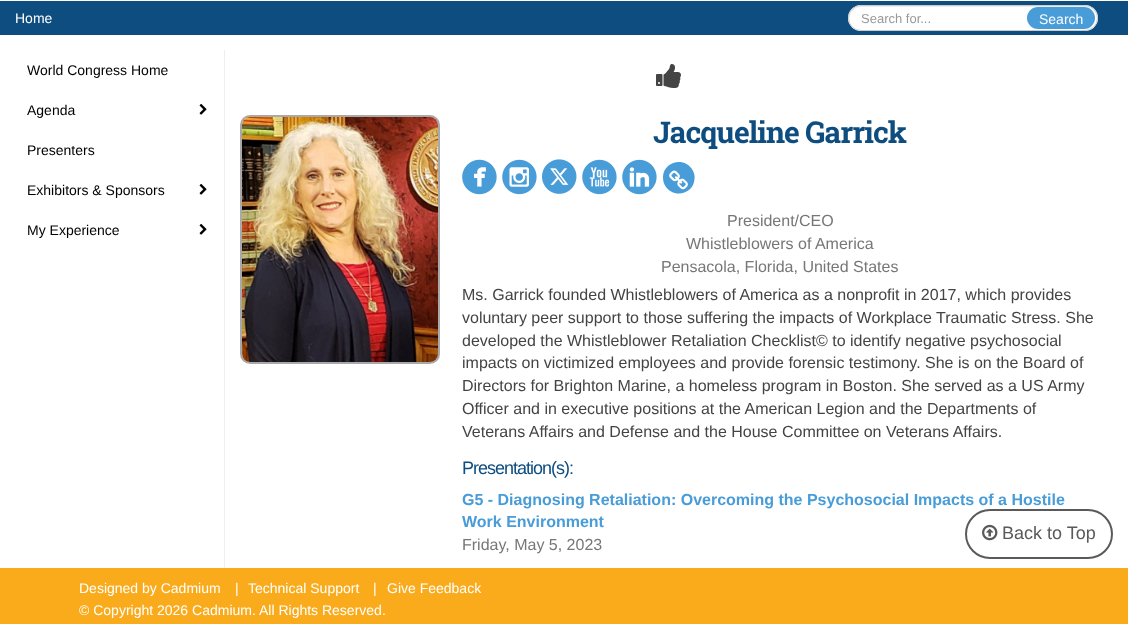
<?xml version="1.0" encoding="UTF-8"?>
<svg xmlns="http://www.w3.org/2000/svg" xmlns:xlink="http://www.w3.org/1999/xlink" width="1128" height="624">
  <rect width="100%" height="100%" fill="#ffffff" />
  <rect y="1" width="1128" height="34" fill="#0e4d80" />
  <rect x="848" y="5" width="250" height="26" rx="13" fill="#ffffff" />
  <path d="M 861 7 h 224 c 8 0 12 6 12 11 c 0 -6 -5 -12 -12 -12 h -224 c -7 0 -13 7 -12 14 c 0 -6 5 -13 12 -13 z" fill="#ececec" />
  <rect x="848.5" y="5.5" width="249" height="25" rx="12.5" fill="none" stroke="#cccccc" />
  <rect x="1027" y="7" width="68" height="22" rx="11" fill="#489cd8" />
  <rect x="224" y="50" width="1" height="518" fill="#eeeeee" />
  <image x="199" y="103" width="8" height="12" xlink:href="image1.png" />
  <image x="199" y="183" width="8" height="12" xlink:href="image1.png" />
  <image x="199" y="223" width="8" height="12" xlink:href="image1.png" />
  <image x="656" y="64" width="25" height="24" xlink:href="image2.png" />
  <rect x="241" y="116" width="198" height="247" rx="9" fill="none" stroke="#a9a9a9" stroke-width="2" />
  <image x="242" y="117" width="196" height="245" xlink:href="image3.png" />
  <image x="462" y="159" width="35" height="36" xlink:href="image4.png" />
  <image x="502" y="159" width="35" height="36" xlink:href="image5.png" />
  <image x="542" y="159" width="35" height="35" xlink:href="image6.png" />
  <image x="582" y="159" width="35" height="36" xlink:href="image7.png" />
  <image x="622" y="159" width="35" height="36" xlink:href="image8.png" />
  <path d="M 692.5 170 c 1.5 2.5 2.5 5.5 2 9 c -1 15.5 -21.5 20 -29.5 6.5 c -1.5 -2.5 -2 -5.5 -2 -9 c 1 -15.5 22 -20 29.5 -6.5 z" fill="#489cd8" />
  <image x="669" y="170" width="19" height="20" xlink:href="image9.png" />
  <rect x="966" y="510" width="146" height="48" rx="24" fill="none" stroke="#5a5a5a" stroke-width="2" />
  <image x="982" y="524" width="16" height="17" xlink:href="image10.png" />
  <rect y="568" width="1128" height="56" fill="#faab1b" />
  <text x="15" y="23" style="font-family: Liberation Sans; font-size: 14px; fill: #ffffff">Home</text>
  <text x="861" y="23" style="font-family: Liberation Sans; font-size: 13px; fill: #999999">Search for...</text>
  <text x="1039" y="24" style="font-family: Liberation Sans; font-size: 14px; fill: #ffffff">Search</text>
  <text x="27" y="75" style="font-family: Liberation Sans; font-size: 14px; fill: #000000">World Congress Home</text>
  <text x="27" y="115" style="font-family: Liberation Sans; font-size: 14px; fill: #000000">Agenda</text>
  <text x="27" y="155" style="font-family: Liberation Sans; font-size: 14px; fill: #000000">Presenters</text>
  <text x="27" y="195" style="font-family: Liberation Sans; font-size: 14px; fill: #000000">Exhibitors &amp; Sponsors</text>
  <text x="27" y="235" style="font-family: Liberation Sans; font-size: 14px; fill: #000000">My Experience</text>
  <text x="653" y="143" style="font-family: Roboto Slab; font-size: 30px; font-weight: bold; letter-spacing: -1px; fill: #0e4d80">Jacqueline Garrick</text>
  <text x="727" y="226" style="font-family: Liberation Sans; font-size: 16px; fill: #777777">President/CEO</text>
  <text x="686" y="249" style="font-family: Liberation Sans; font-size: 16px; fill: #777777">Whistleblowers of America</text>
  <text x="661" y="272" style="font-family: Liberation Sans; font-size: 16px; fill: #777777">Pensacola, Florida, United States</text>
  <text x="462" y="300" style="font-family: Liberation Sans; font-size: 16px; fill: #444444">Ms. Garrick founded Whistleblowers of America as a nonprofit in 2017, which provides</text>
  <text x="462" y="323" style="font-family: Liberation Sans; font-size: 16px; fill: #444444">voluntary peer support to those suffering the impacts of Workplace Traumatic Stress. She</text>
  <text x="462" y="346" style="font-family: Liberation Sans; font-size: 16px; fill: #444444">developed the Whistleblower Retaliation Checklist© to identify negative psychosocial</text>
  <text x="462" y="368" style="font-family: Liberation Sans; font-size: 16px; fill: #444444">impacts on victimized employees and provide forensic testimony. She is on the Board of</text>
  <text x="462" y="391" style="font-family: Liberation Sans; font-size: 16px; fill: #444444">Directors for Brighton Marine, a homeless program in Boston. She served as a US Army</text>
  <text x="462" y="414" style="font-family: Liberation Sans; font-size: 16px; fill: #444444">Officer and in executive positions at the American Legion and the Departments of</text>
  <text x="462" y="437" style="font-family: Liberation Sans; font-size: 16px; fill: #444444">Veterans Affairs and Defense and the House Committee on Veterans Affairs.</text>
  <text x="462" y="474" style="font-family: Liberation Sans; font-size: 18px; letter-spacing: -1px; fill: #0e4d80">Presentation(s):</text>
  <text x="462" y="505" style="font-family: Liberation Sans; font-size: 16px; font-weight: bold; fill: #489cd8">G5 - Diagnosing Retaliation: Overcoming the Psychosocial Impacts of a Hostile</text>
  <text x="462" y="527" style="font-family: Liberation Sans; font-size: 16px; font-weight: bold; fill: #489cd8">Work Environment</text>
  <text x="462" y="550" style="font-family: Liberation Sans; font-size: 16px; fill: #777777">Friday, May 5, 2023</text>
  <text x="1002" y="539" style="font-family: Liberation Sans; font-size: 18px; fill: #5a5a5a">Back to Top</text>
  <text x="79" y="593" style="font-family: Liberation Sans; font-size: 14px; fill: #ffffff">Designed by Cadmium</text>
  <text x="235" y="593" style="font-family: Liberation Sans; font-size: 14px; fill: #ffffff">|</text>
  <text x="248" y="593" style="font-family: Liberation Sans; font-size: 14px; fill: #ffffff">Technical Support</text>
  <text x="373" y="593" style="font-family: Liberation Sans; font-size: 14px; fill: #ffffff">|</text>
  <text x="387" y="593" style="font-family: Liberation Sans; font-size: 14px; fill: #ffffff">Give Feedback</text>
  <text x="79" y="615" style="font-family: Liberation Sans; font-size: 14px; fill: #ffffff">© Copyright 2026 Cadmium. All Rights Reserved.</text>
</svg>
